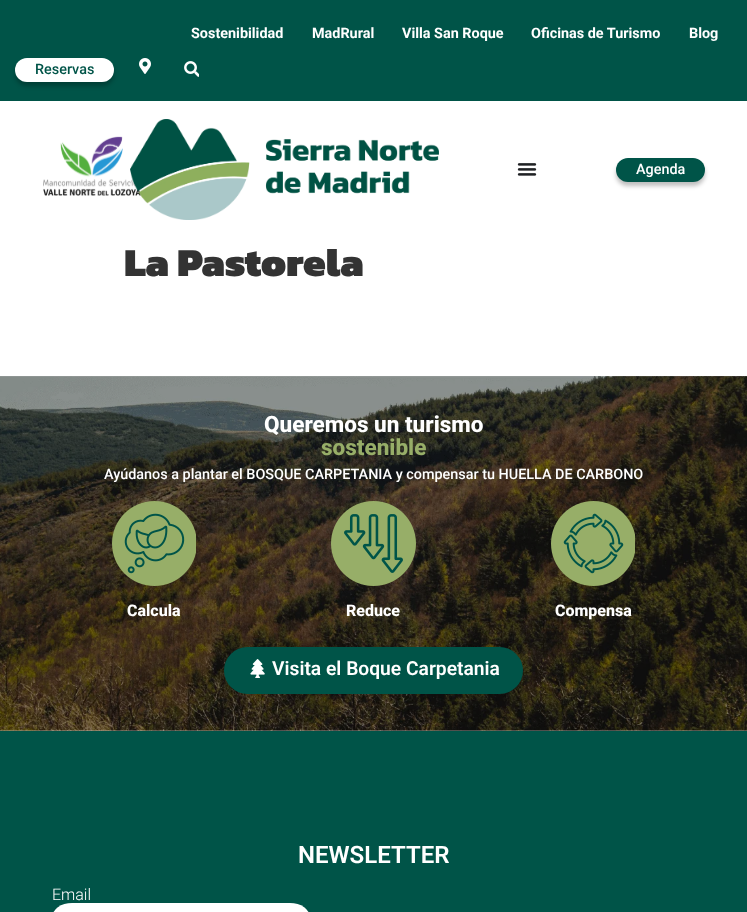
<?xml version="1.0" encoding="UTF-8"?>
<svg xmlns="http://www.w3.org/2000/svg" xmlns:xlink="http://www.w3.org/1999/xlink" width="747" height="912">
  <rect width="100%" height="100%" fill="#ffffff" />
  <rect width="747" height="101" fill="#005448" />
  <rect x="15" y="62" width="99" height="24" rx="12" fill="#000000" fill-opacity="0.25" filter="blur(2px)" />
  <rect x="15" y="58" width="99" height="24" rx="12" fill="#ffffff" />
  <image x="139" y="58" width="12" height="16" xlink:href="image1.png" />
  <image x="184" y="61" width="15" height="16" xlink:href="image2.png" />
  <image x="43" y="136" width="98" height="60" xlink:href="image3.png" />
  <image x="130" y="119" width="309" height="101" xlink:href="image4.png" />
  <image x="517" y="163" width="20" height="13" xlink:href="image5.png" />
  <rect x="616" y="162" width="89" height="24" rx="12" fill="#000000" fill-opacity="0.25" filter="blur(2px)" />
  <rect x="616" y="158" width="89" height="24" rx="12" fill="#005448" />
  <image x="0" y="376" width="747" height="355" xlink:href="image6.png" />
  <image x="112" y="501" width="84" height="85" xlink:href="image7.png" />
  <image x="331" y="501" width="85" height="85" xlink:href="image8.png" />
  <image x="551" y="501" width="84" height="85" xlink:href="image9.png" />
  <rect x="224" y="647" width="299" height="47" rx="23.5" fill="#005448" />
  <image x="250" y="659" width="15" height="19" xlink:href="image10.png" />
  <rect y="731" width="747" height="181" fill="#005448" />
  <rect x="52" y="907" width="258" height="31" rx="20" fill="#000000" fill-opacity="0.5" filter="blur(2px)" />
  <rect x="52" y="903" width="258" height="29" rx="20" fill="#ffffff" />
  <text x="191" y="38" style="font-family: Roboto; font-size: 14.4px; font-weight: bold; fill: #ffffff">Sostenibilidad</text>
  <text x="312" y="38" style="font-family: Roboto; font-size: 14.4px; font-weight: bold; fill: #ffffff">MadRural</text>
  <text x="402" y="38" style="font-family: Roboto; font-size: 14.4px; font-weight: bold; fill: #ffffff">Villa San Roque</text>
  <text x="531" y="38" style="font-family: Roboto; font-size: 14.4px; font-weight: bold; fill: #ffffff">Oficinas de Turismo</text>
  <text x="689" y="38" style="font-family: Roboto; font-size: 14.4px; font-weight: bold; fill: #ffffff">Blog</text>
  <text x="35" y="74" style="font-family: Roboto; font-size: 14.4px; font-weight: 500; fill: #005448">Reservas</text>
  <text x="636" y="174" style="font-family: Roboto; font-size: 14.4px; font-weight: 500; fill: #ffffff">Agenda</text>
  <text x="124" y="276" style="font-family: Kanit; font-size: 40px; font-weight: 900; fill: #333333">La Pastorela</text>
  <text x="264" y="432" style="font-family: Roboto; font-size: 22.5px; font-weight: 800; fill: #ffffff">Queremos un turismo</text>
  <text x="321" y="455" style="font-family: Roboto; font-size: 22.5px; font-weight: 800; fill: #97ae68">sostenible</text>
  <text x="104" y="479" style="font-family: Roboto; font-size: 14.4px; font-weight: 500; fill: #ffffff">Ayúdanos a plantar el BOSQUE CARPETANIA y compensar tu HUELLA DE CARBONO</text>
  <text x="127" y="616" style="font-family: Roboto; font-size: 16px; font-weight: 800; fill: #ffffff">Calcula</text>
  <text x="346" y="616" style="font-family: Roboto; font-size: 16px; font-weight: 800; fill: #ffffff">Reduce</text>
  <text x="555" y="616" style="font-family: Roboto; font-size: 16px; font-weight: 800; fill: #ffffff">Compensa</text>
  <text x="272" y="675" style="font-family: Roboto; font-size: 19.25px; font-weight: 600; fill: #ffffff">Visita el Boque Carpetania</text>
  <text x="298" y="863" style="font-family: Roboto; font-size: 24px; font-weight: 600; fill: #ffffff">NEWSLETTER</text>
  <text x="52" y="900" style="font-family: Roboto; font-size: 16px; font-weight: 300; fill: #ffffff">Email</text>
</svg>
